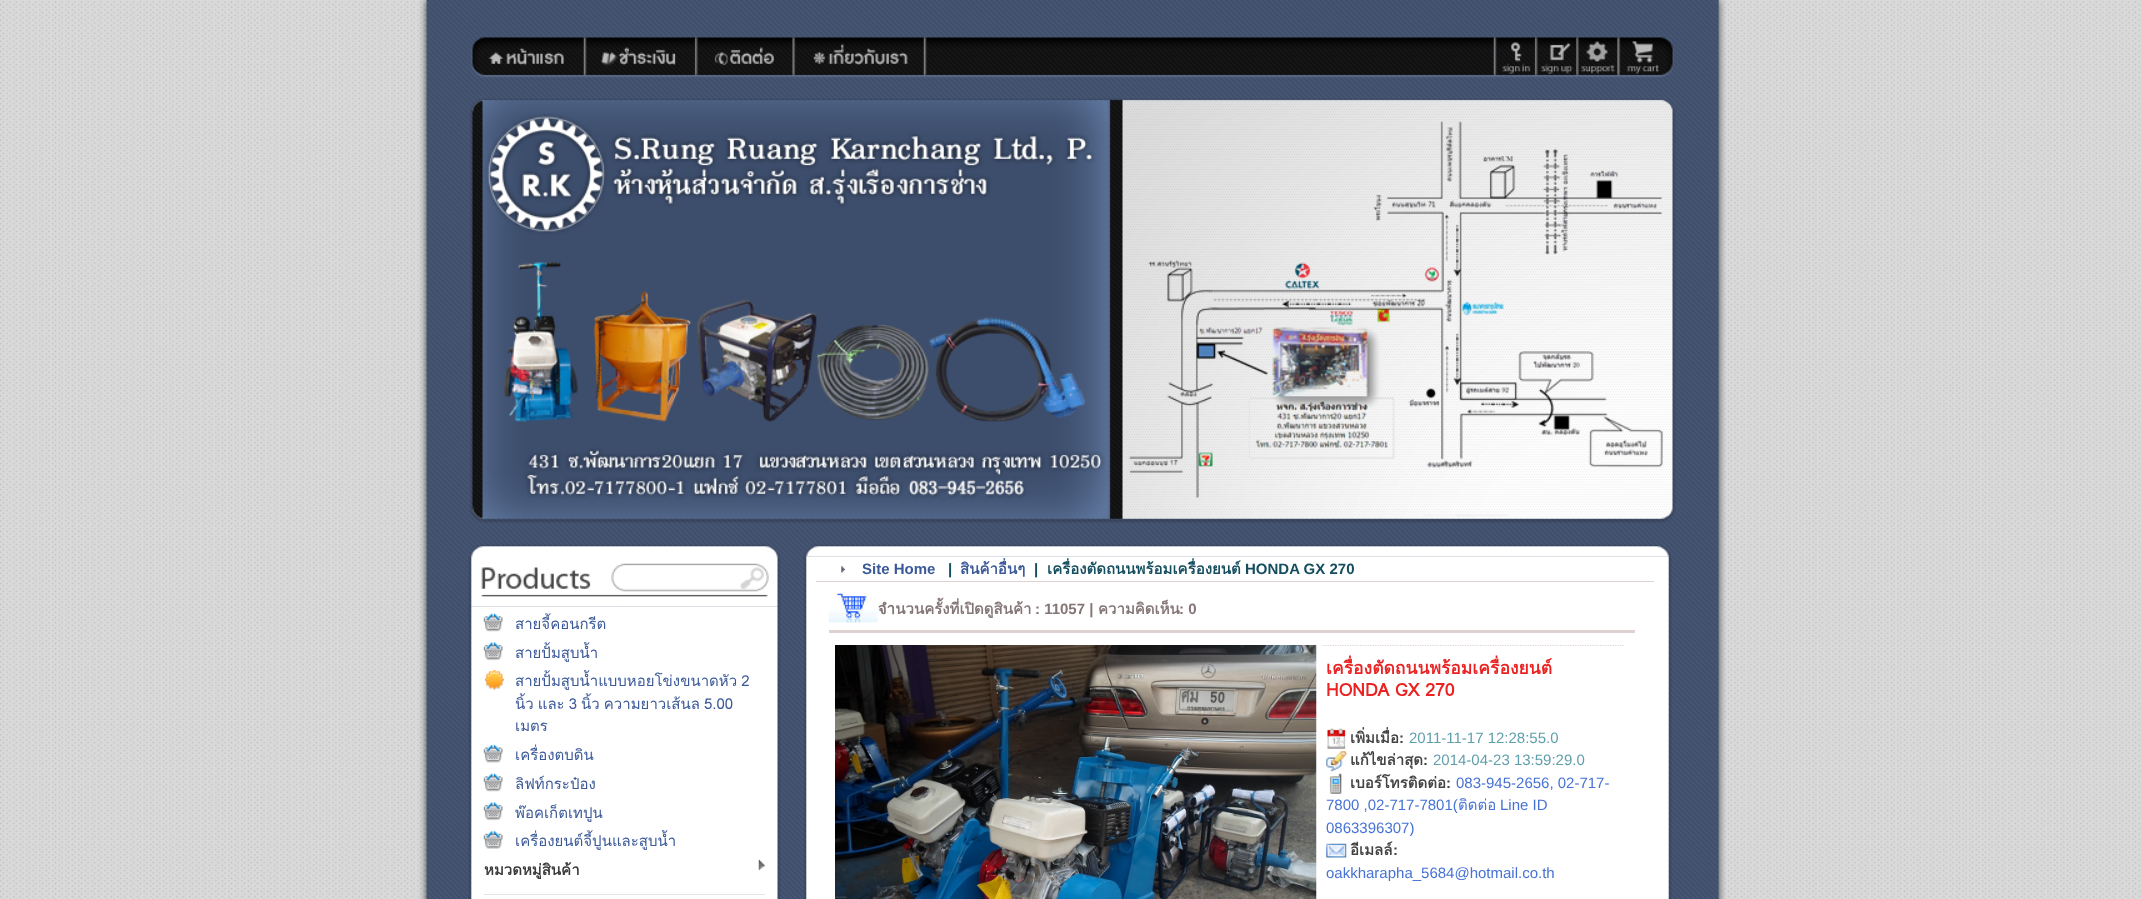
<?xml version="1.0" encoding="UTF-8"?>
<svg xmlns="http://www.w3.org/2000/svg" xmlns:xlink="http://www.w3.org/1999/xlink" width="2141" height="899">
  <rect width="100%" height="100%" fill="#ffffff" />
  <image x="0" y="0" width="2141" height="899" xlink:href="image1.png" />
  <image x="470" y="98" width="1206" height="425" xlink:href="image2.png" />
  <image x="471" y="37" width="1026" height="41" xlink:href="image3.png" />
  <image x="1496" y="37" width="122" height="41" xlink:href="image4.png" />
  <image x="1617" y="37" width="57" height="41" xlink:href="image5.png" />
  <image x="468" y="544" width="313" height="63" xlink:href="image6.png" />
  <image x="468" y="606" width="313" height="293" xlink:href="image7.png" />
  <image x="483" y="613" width="20" height="19" xlink:href="image8.png" />
  <image x="483" y="642" width="20" height="19" xlink:href="image9.png" />
  <image x="484" y="670" width="20" height="20" xlink:href="image10.png" />
  <image x="483" y="744" width="20" height="19" xlink:href="image11.png" />
  <image x="483" y="773" width="20" height="19" xlink:href="image12.png" />
  <image x="483" y="802" width="20" height="19" xlink:href="image9.png" />
  <image x="483" y="831" width="20" height="18" xlink:href="image13.png" />
  <image x="758" y="859" width="7" height="12" xlink:href="image14.png" />
  <rect x="484" y="894" width="281" height="1" fill="#e3e4e6" />
  <image x="804" y="544" width="867" height="13" xlink:href="image15.png" />
  <image x="804" y="556" width="868" height="343" xlink:href="image16.png" />
  <image x="841" y="566" width="4" height="7" xlink:href="image17.png" />
  <rect x="816" y="581" width="838" height="1" fill="#dfd1d1" />
  <image x="828" y="592" width="50" height="31" xlink:href="image18.png" />
  <rect x="829" y="630" width="806" height="3" fill="#dfd1d1" />
  <image x="835" y="645" width="482" height="254" xlink:href="image19.png" />
  <path d="M 1322.5 645.5 h 301.5" fill="none" stroke="#dfd1d1" stroke-width="1.2" stroke-dasharray="1.25 1.25" />
  <image x="1327" y="728" width="19" height="21" xlink:href="image20.png" />
  <image x="1326" y="751" width="21" height="21" xlink:href="image21.png" />
  <image x="1329" y="773" width="13" height="21" xlink:href="image22.png" />
  <image x="1326" y="843" width="21" height="15" xlink:href="image23.png" />
  <text x="515" y="629" style="font-family: Loma; font-size: 15px; fill: #3b5998">สายจี้คอนกรีต</text>
  <text x="515" y="658" style="font-family: Loma; font-size: 15px; fill: #3b5998">สายปั้มสูบน้ำ</text>
  <text x="515" y="686" word-spacing="-1" style="font-family: Loma; font-size: 15px; fill: #3b5998">สายปั้มสูบน้ำแบบหอยโข่งขนาดหัว 2</text>
  <text x="515" y="709" word-spacing="-1" style="font-family: Loma; font-size: 15px; fill: #3b5998">นิ้ว และ 3 นิ้ว ความยาวเส้นล 5.00</text>
  <text x="515" y="731" style="font-family: Loma; font-size: 15px; fill: #3b5998">เมตร</text>
  <text x="515" y="760" style="font-family: Loma; font-size: 15px; fill: #3b5998">เครื่องตบดิน</text>
  <text x="515" y="789" style="font-family: Loma; font-size: 15px; fill: #3b5998">ลิฟท์กระป๋อง</text>
  <text x="515" y="818" style="font-family: Loma; font-size: 15px; fill: #3b5998">พ๊อคเก็ตเทปูน</text>
  <text x="515" y="846" style="font-family: Loma; font-size: 15px; fill: #3b5998">เครื่องยนต์จี้ปูนและสูบน้ำ</text>
  <text x="484" y="875" style="font-family: Loma; font-size: 15px; font-weight: bold; fill: #3a3a3a">หมวดหมู่สินค้า</text>
  <text x="862" y="574" style="font-family: Liberation Sans; font-size: 15px; font-weight: bold; fill: #3b5998">Site Home</text>
  <text x="948" y="574" style="font-family: Liberation Sans; font-size: 15px; font-weight: bold; fill: #144d5e">|</text>
  <text x="960" y="574" style="font-family: Loma; font-size: 15px; font-weight: bold; fill: #3b5998">สินค้าอื่นๆ</text>
  <text x="1034" y="574" style="font-family: Liberation Sans; font-size: 15px; font-weight: bold; fill: #144d5e">|</text>
  <text x="1047" y="574" style="font-family: Loma; font-size: 15px; font-weight: bold; fill: #144d5e">เครื่องตัดถนนพร้อมเครื่องยนต์</text>
  <text x="1245" y="574" style="font-family: Liberation Sans; font-size: 15px; font-weight: bold; fill: #144d5e">HONDA GX 270</text>
  <text x="878" y="614" style="font-family: Loma; font-size: 15px; font-weight: bold; fill: #847676">จำนวนครั้งที่เปิดดูสินค้า</text>
  <text x="1035" y="614" style="font-family: Liberation Sans; font-size: 15px; font-weight: bold; fill: #847676">: 11057 |</text>
  <text x="1098" y="614" style="font-family: Loma; font-size: 15px; font-weight: bold; fill: #847676">ความคิดเห็น</text>
  <text x="1179" y="614" style="font-family: Liberation Sans; font-size: 15px; font-weight: bold; fill: #847676">: 0</text>
  <text x="1326" y="674" style="font-family: Loma; font-size: 17.5px; font-weight: bold; fill: #ea2222">เครื่องตัดถนนพร้อมเครื่องยนต์</text>
  <text x="1326" y="696" style="font-family: Loma; font-size: 17.5px; font-weight: bold; fill: #ea2222">HONDA GX 270</text>
  <text x="1350" y="743" style="font-family: Loma; font-size: 15px; font-weight: bold; fill: #444444">เพิ่มเมื่อ</text>
  <text x="1399" y="743" style="font-family: Liberation Sans; font-size: 15px; font-weight: bold; fill: #444444">:</text>
  <text x="1409" y="743" style="font-family: Liberation Sans; font-size: 15px; fill: #5f9fab">2011-11-17 12:28:55.0</text>
  <text x="1350" y="765" style="font-family: Loma; font-size: 15px; font-weight: bold; fill: #444444">แก้ไขล่าสุด</text>
  <text x="1423" y="765" style="font-family: Liberation Sans; font-size: 15px; font-weight: bold; fill: #444444">:</text>
  <text x="1433" y="765" style="font-family: Liberation Sans; font-size: 15px; fill: #5f9fab">2014-04-23 13:59:29.0</text>
  <text x="1350" y="788" style="font-family: Loma; font-size: 15px; font-weight: bold; fill: #444444">เบอร์โทรติดต่อ</text>
  <text x="1446" y="788" style="font-family: Liberation Sans; font-size: 15px; font-weight: bold; fill: #444444">:</text>
  <text x="1456" y="788" style="font-family: Liberation Sans; font-size: 15px; fill: #4671d5">083-945-2656, 02-717-</text>
  <text x="1326" y="810" style="font-family: Liberation Sans; font-size: 15px; fill: #4671d5">7800 ,02-717-7801(</text>
  <text x="1458" y="810" style="font-family: Loma; font-size: 15px; fill: #4671d5">ติดต่อ</text>
  <text x="1500" y="810" style="font-family: Liberation Sans; font-size: 15px; fill: #4671d5">Line ID</text>
  <text x="1326" y="833" style="font-family: Liberation Sans; font-size: 15px; fill: #4671d5">0863396307)</text>
  <text x="1350" y="855" style="font-family: Loma; font-size: 15px; font-weight: bold; fill: #444444">อีเมลล์</text>
  <text x="1393" y="855" style="font-family: Liberation Sans; font-size: 15px; font-weight: bold; fill: #444444">:</text>
  <text x="1326" y="878" style="font-family: Liberation Sans; font-size: 15px; fill: #4671d5">oakkharapha_5684@hotmail.co.th</text>
</svg>
